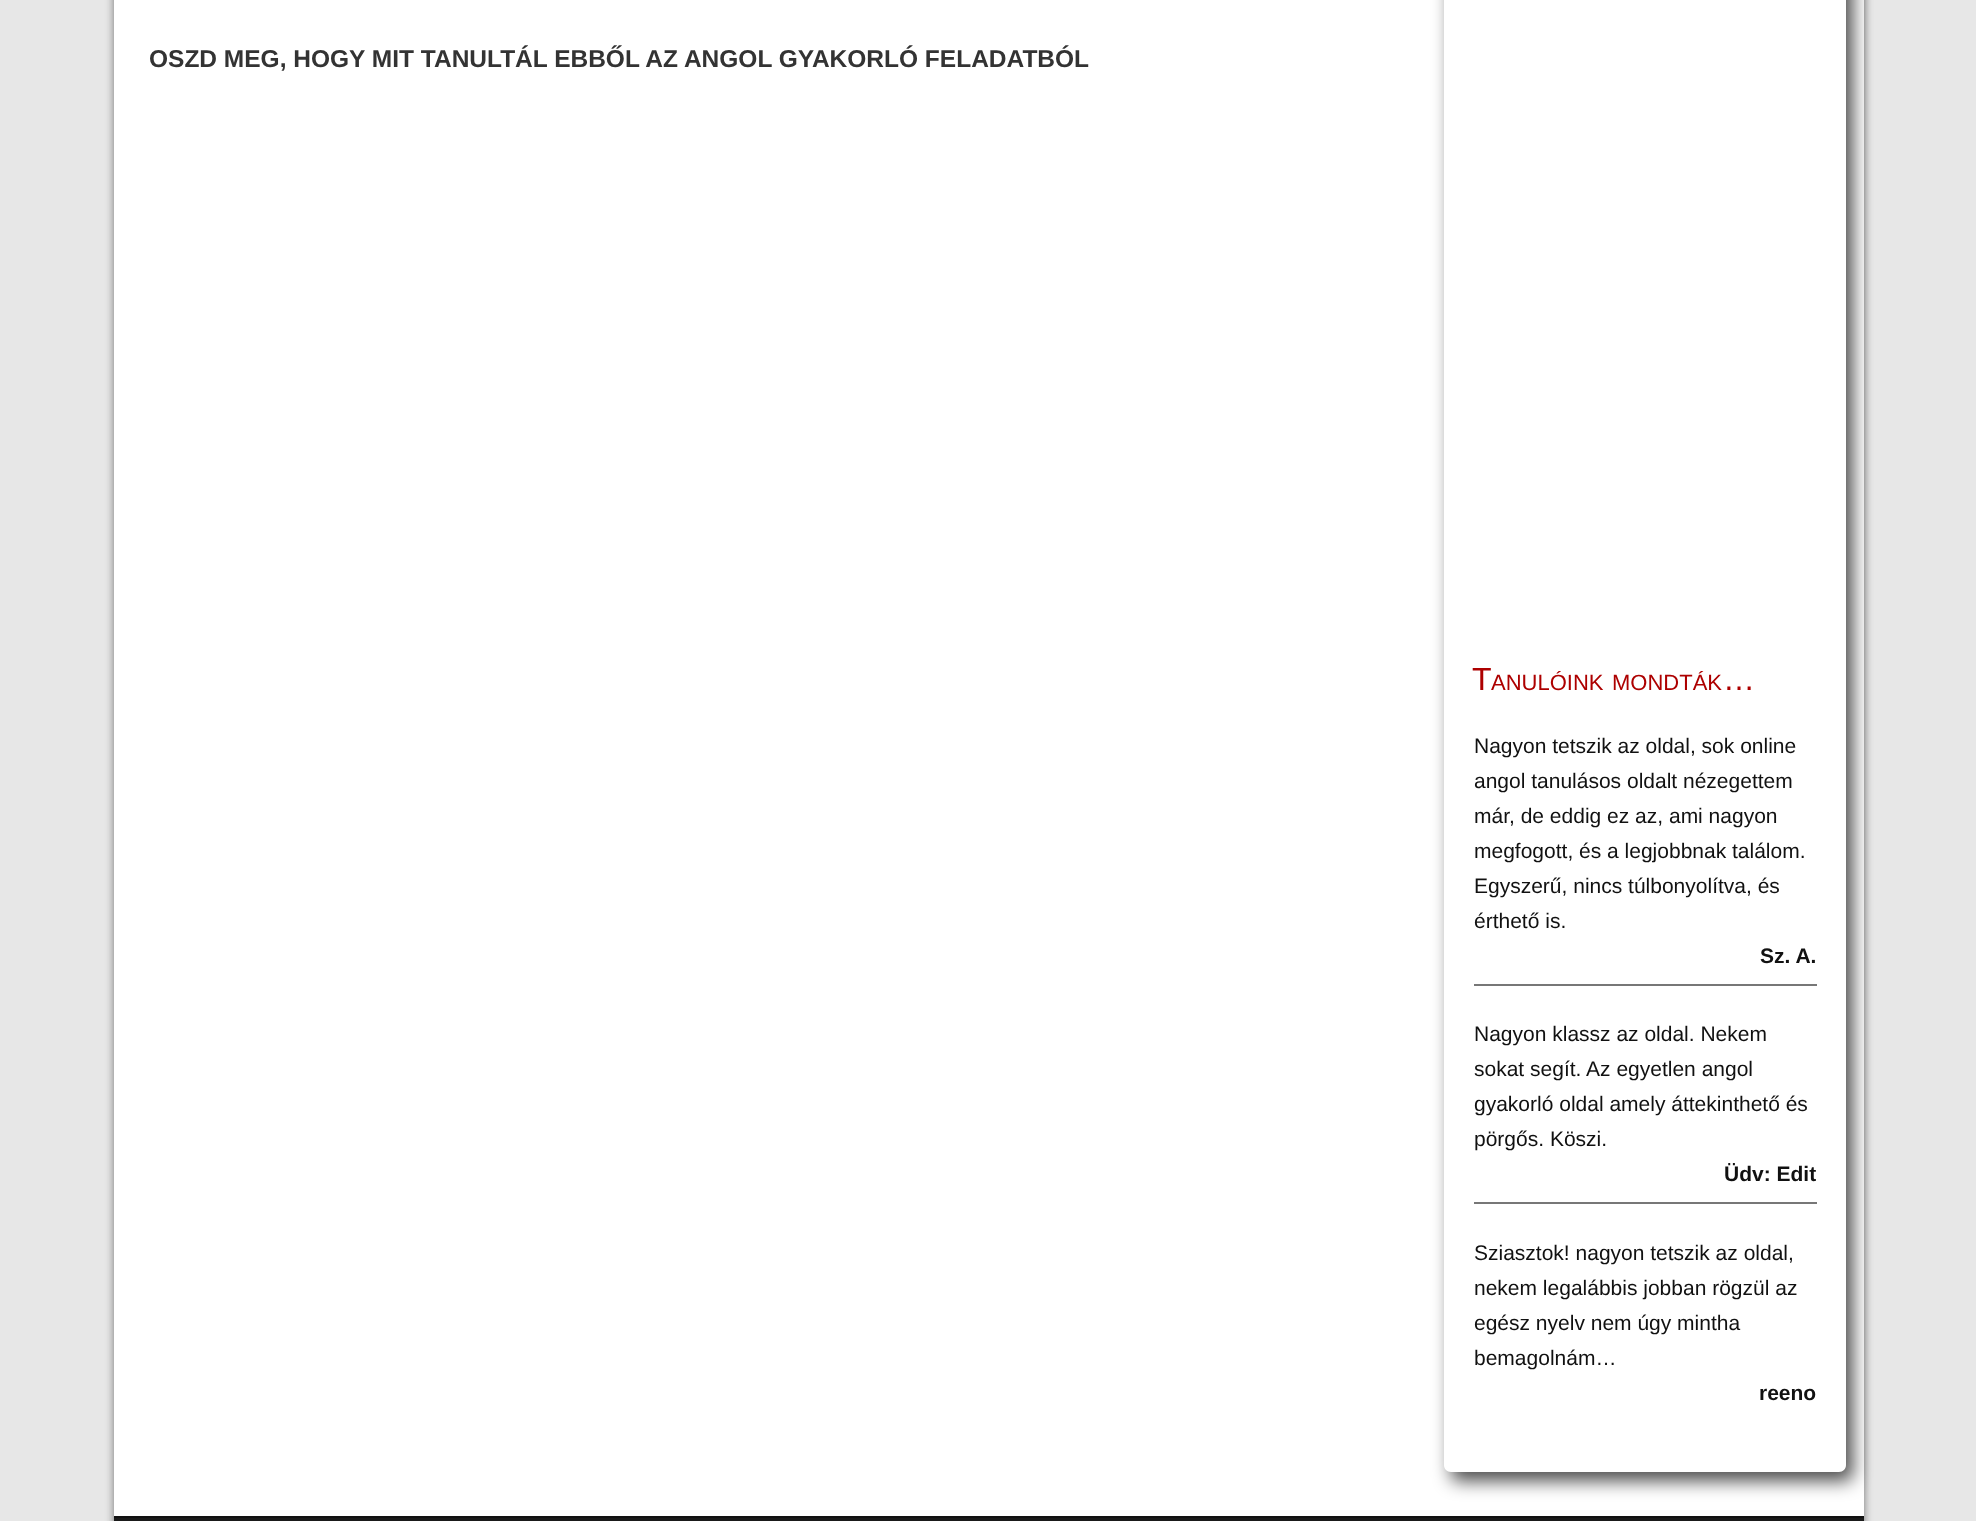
<?xml version="1.0" encoding="UTF-8"?>
<svg xmlns="http://www.w3.org/2000/svg" xmlns:xlink="http://www.w3.org/1999/xlink" width="1976" height="1521">
  <defs>
    <clipPath id="clip1"><path d="M 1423 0 h 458 v 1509 h -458 z m 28 -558 h 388 c 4 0 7 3 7 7 v 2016 c 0 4 -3 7 -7 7 h -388 c -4 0 -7 -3 -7 -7 v -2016 c 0 -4 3 -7 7 -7 z" clip-rule="evenodd" /></clipPath>
  </defs>
  <rect width="100%" height="100%" fill="#e7e7e7" />
  <rect x="114" y="-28" width="1750" height="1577" rx="14" fill="#000000" fill-opacity="0.5" filter="blur(4.5px)" />
  <rect x="114" width="1750" height="1516" fill="#ffffff" />
  <g clip-path="url(#clip1)">
    <rect x="1451" y="-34" width="402" height="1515" rx="7" fill="#000000" fill-opacity="0.7" filter="blur(9px)" />
  </g>
  <rect x="1474" y="984" width="343" height="2" fill="#777777" />
  <rect x="1474" y="1202" width="343" height="2" fill="#777777" />
  <rect x="114" y="1518" width="1750" height="3" fill="#1a1a1a" />
  <rect x="114" y="1516" width="1750" height="2" fill="#111111" />
  <text x="149" y="67" style="font-family: Liberation Sans; font-size: 24.5px; font-weight: bold; fill: #333333">OSZD MEG, HOGY MIT TANULTÁL EBBŐL AZ ANGOL GYAKORLÓ FELADATBÓL</text>
  <text x="1472" y="690" style="font-family: Liberation Sans; font-size: 32px; fill: #ad0000">T</text>
  <text x="1491" y="690" style="font-family: Liberation Sans; font-size: 22px; fill: #ad0000">ANULÓINK</text>
  <text x="1612" y="690" style="font-family: Liberation Sans; font-size: 22px; fill: #ad0000">MONDTÁK</text>
  <text x="1723" y="690" style="font-family: Liberation Sans; font-size: 32px; fill: #ad0000">…</text>
  <text x="1474" y="753" style="font-family: Liberation Sans; font-size: 21px; fill: #111111">Nagyon tetszik az oldal, sok online</text>
  <text x="1474" y="788" style="font-family: Liberation Sans; font-size: 21px; fill: #111111">angol tanulásos oldalt nézegettem</text>
  <text x="1474" y="823" style="font-family: Liberation Sans; font-size: 21px; fill: #111111">már, de eddig ez az, ami nagyon</text>
  <text x="1474" y="858" style="font-family: Liberation Sans; font-size: 21px; fill: #111111">megfogott, és a legjobbnak találom.</text>
  <text x="1474" y="893" style="font-family: Liberation Sans; font-size: 21px; fill: #111111">Egyszerű, nincs túlbonyolítva, és</text>
  <text x="1474" y="928" style="font-family: Liberation Sans; font-size: 21px; fill: #111111">érthető is.</text>
  <text x="1760" y="963" style="font-family: Liberation Sans; font-size: 21px; font-weight: bold; fill: #111111">Sz. A.</text>
  <text x="1474" y="1041" style="font-family: Liberation Sans; font-size: 21px; fill: #111111">Nagyon klassz az oldal. Nekem</text>
  <text x="1474" y="1076" style="font-family: Liberation Sans; font-size: 21px; fill: #111111">sokat segít. Az egyetlen angol</text>
  <text x="1474" y="1111" style="font-family: Liberation Sans; font-size: 21px; fill: #111111">gyakorló oldal amely áttekinthető és</text>
  <text x="1474" y="1146" style="font-family: Liberation Sans; font-size: 21px; fill: #111111">pörgős. Köszi.</text>
  <text x="1724" y="1181" style="font-family: Liberation Sans; font-size: 21px; font-weight: bold; fill: #111111">Üdv: Edit</text>
  <text x="1474" y="1260" style="font-family: Liberation Sans; font-size: 21px; fill: #111111">Sziasztok! nagyon tetszik az oldal,</text>
  <text x="1474" y="1295" style="font-family: Liberation Sans; font-size: 21px; fill: #111111">nekem legalábbis jobban rögzül az</text>
  <text x="1474" y="1330" style="font-family: Liberation Sans; font-size: 21px; fill: #111111">egész nyelv nem úgy mintha</text>
  <text x="1474" y="1365" style="font-family: Liberation Sans; font-size: 21px; fill: #111111">bemagolnám…</text>
  <text x="1759" y="1400" style="font-family: Liberation Sans; font-size: 21px; font-weight: bold; fill: #111111">reeno</text>
</svg>
